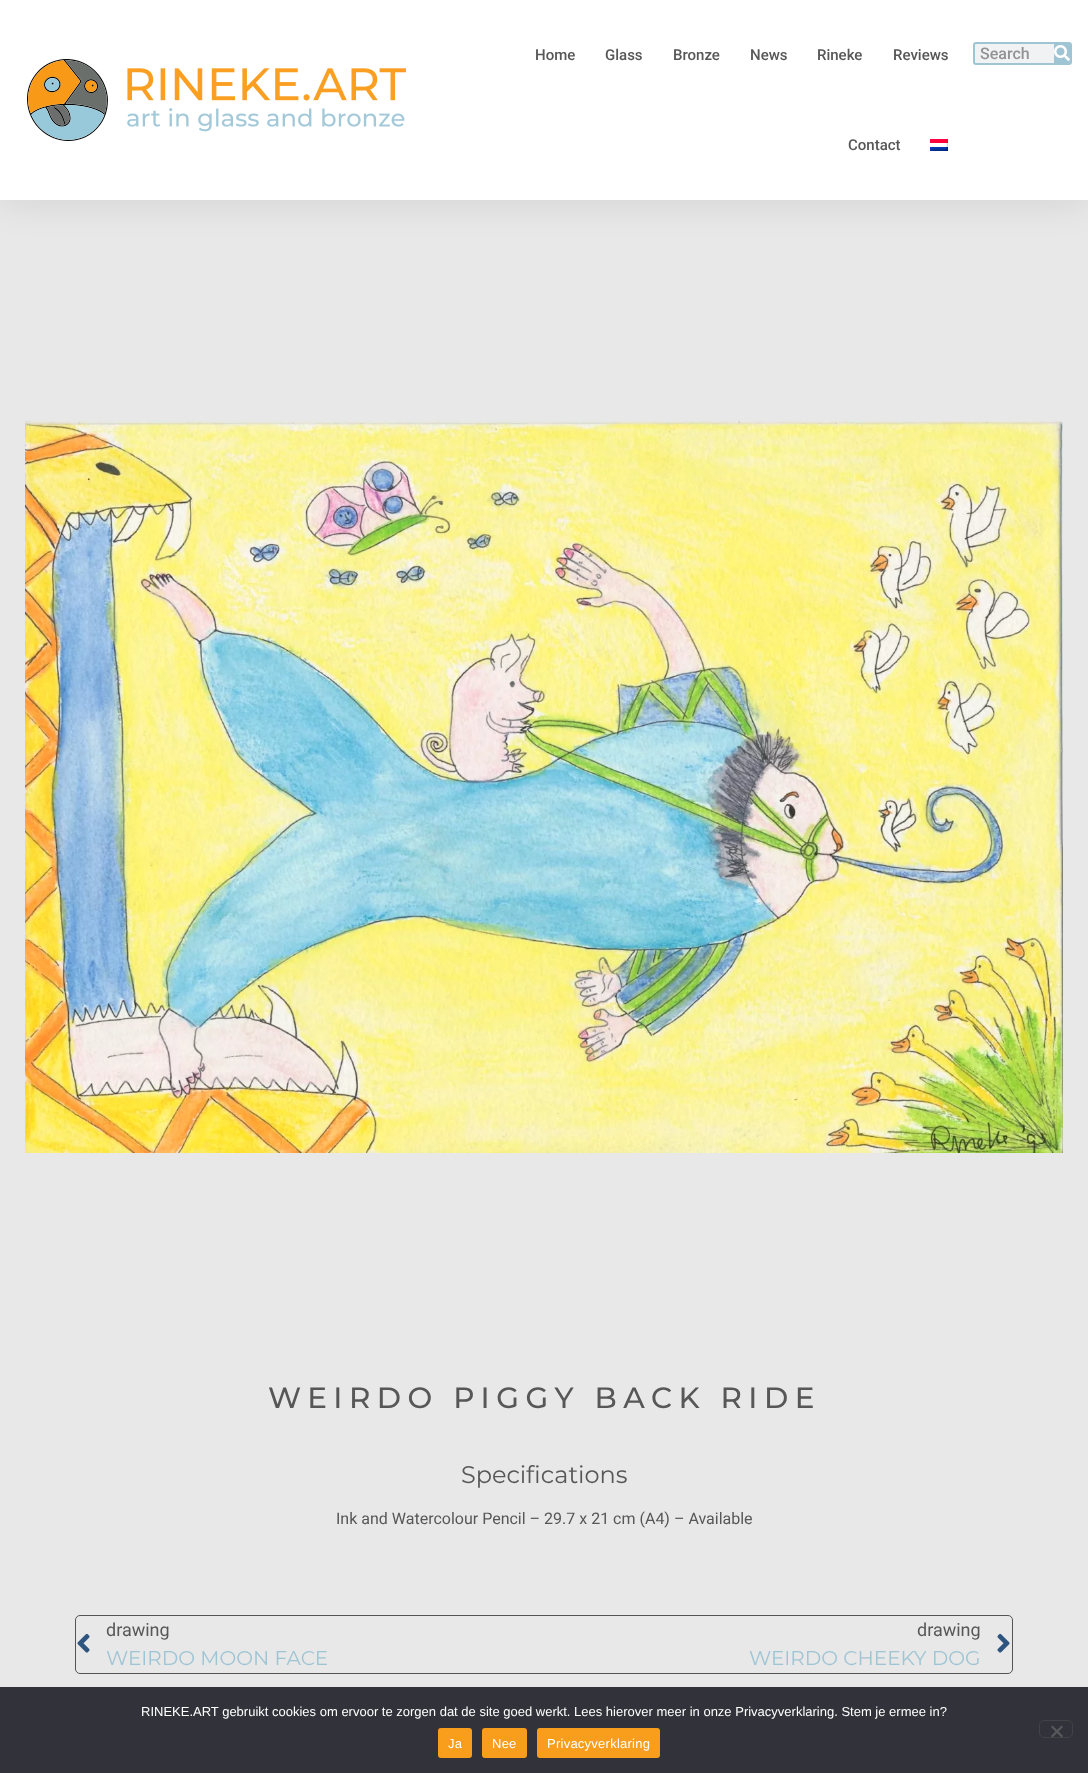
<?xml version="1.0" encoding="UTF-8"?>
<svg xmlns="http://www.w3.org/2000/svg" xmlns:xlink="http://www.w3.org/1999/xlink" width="1088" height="1773">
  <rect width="100%" height="100%" fill="#e8e8e8" />
  <rect width="1088" height="200" fill="#000000" fill-opacity="0.1" filter="blur(19px)" />
  <rect width="1088" height="200" fill="#ffffff" />
  <image x="27" y="59" width="379" height="82" xlink:href="image1.png" />
  <image x="930" y="139" width="18" height="12" xlink:href="image2.png" />
  <rect x="974" y="43" width="97" height="21" rx="2" fill="#f1f2f3" stroke="#9fc5d5" stroke-width="2" />
  <path d="M 1054 44 h 15 c 0.5 0 1 0.5 1 1 v 17 c 0 0.5 -0.5 1 -1 1 h -15 z" fill="#9fc5d5" />
  <image x="1054" y="45" width="16" height="16" xlink:href="image3.png" />
  <image x="25" y="421" width="1038" height="732" xlink:href="image4.png" />
  <rect x="75.5" y="1615.5" width="937" height="58" rx="4.5" fill="none" stroke="#545454" />
  <image x="77" y="1633" width="13" height="20" xlink:href="image5.png" />
  <image x="997" y="1633" width="13" height="20" xlink:href="image6.png" />
  <rect y="1687" width="1088" height="86" fill="#32323a" />
  <rect x="1039.5" y="1720.5" width="33" height="17" rx="4.5" fill="none" stroke="#434347" />
  <path d="M 1061.5 1725.5 l 1.5 1.5 l -10.5 10.5 l -1.5 -1.5 z" fill="#59595d" />
  <path d="M 1051 1727 l 1.5 -1.5 l 10.5 10.5 l -1.5 1.5 z" fill="#59595d" />
  <rect x="438" y="1728" width="34" height="30" rx="3" fill="#f99d1c" />
  <rect x="482" y="1728" width="45" height="30" rx="3" fill="#f99d1c" />
  <rect x="537" y="1728" width="123" height="30" rx="3" fill="#f99d1c" />
  <text x="535" y="60" style="font-family: Roboto; font-size: 15px; font-weight: 500; fill: #575757">Home</text>
  <text x="605" y="60" style="font-family: Roboto; font-size: 15px; font-weight: 500; fill: #575757">Glass</text>
  <text x="673" y="60" style="font-family: Roboto; font-size: 15px; font-weight: 500; fill: #575757">Bronze</text>
  <text x="750" y="60" style="font-family: Roboto; font-size: 15px; font-weight: 500; fill: #575757">News</text>
  <text x="817" y="60" style="font-family: Roboto; font-size: 15px; font-weight: 500; fill: #575757">Rineke</text>
  <text x="893" y="60" style="font-family: Roboto; font-size: 15px; font-weight: 500; fill: #575757">Reviews</text>
  <text x="848" y="150" style="font-family: Roboto; font-size: 15px; font-weight: 500; fill: #575757">Contact</text>
  <text x="980" y="59" style="font-family: Roboto; font-size: 16px; font-weight: 500; fill: #939394">Search</text>
  <text x="268" y="1408" style="font-family: Montserrat; font-size: 29.4px; font-weight: 500; letter-spacing: 6.5px; fill: #575757">WEIRDO PIGGY BACK RIDE</text>
  <text x="461" y="1483" style="font-family: Montserrat; font-size: 24px; fill: #575757">Specifications</text>
  <text x="336" y="1524" style="font-family: Roboto; font-size: 16px; fill: #575757">Ink and Watercolour Pencil – 29.7 x 21 cm (A4) – Available</text>
  <text x="106" y="1636" style="font-family: Roboto; font-size: 18px; fill: #575757">drawing</text>
  <text x="106" y="1665" style="font-family: Montserrat; font-size: 20px; fill: #9fc5d5">WEIRDO MOON FACE</text>
  <text x="917" y="1636" style="font-family: Roboto; font-size: 18px; fill: #575757">drawing</text>
  <text x="749" y="1665" style="font-family: Montserrat; font-size: 20px; fill: #9fc5d5">WEIRDO CHEEKY DOG</text>
  <text x="141" y="1716" style="font-family: Liberation Sans; font-size: 13px; fill: #ffffff">RINEKE.ART gebruikt cookies om ervoor te zorgen dat de site goed werkt. Lees hierover meer in onze Privacyverklaring. Stem je ermee in?</text>
  <text x="448" y="1748" style="font-family: Liberation Sans; font-size: 13px; letter-spacing: 0.25px; fill: #ffffff">Ja</text>
  <text x="492" y="1748" style="font-family: Liberation Sans; font-size: 13px; letter-spacing: 0.25px; fill: #ffffff">Nee</text>
  <text x="547" y="1748" style="font-family: Liberation Sans; font-size: 13px; letter-spacing: 0.25px; fill: #ffffff">Privacyverklaring</text>
</svg>
